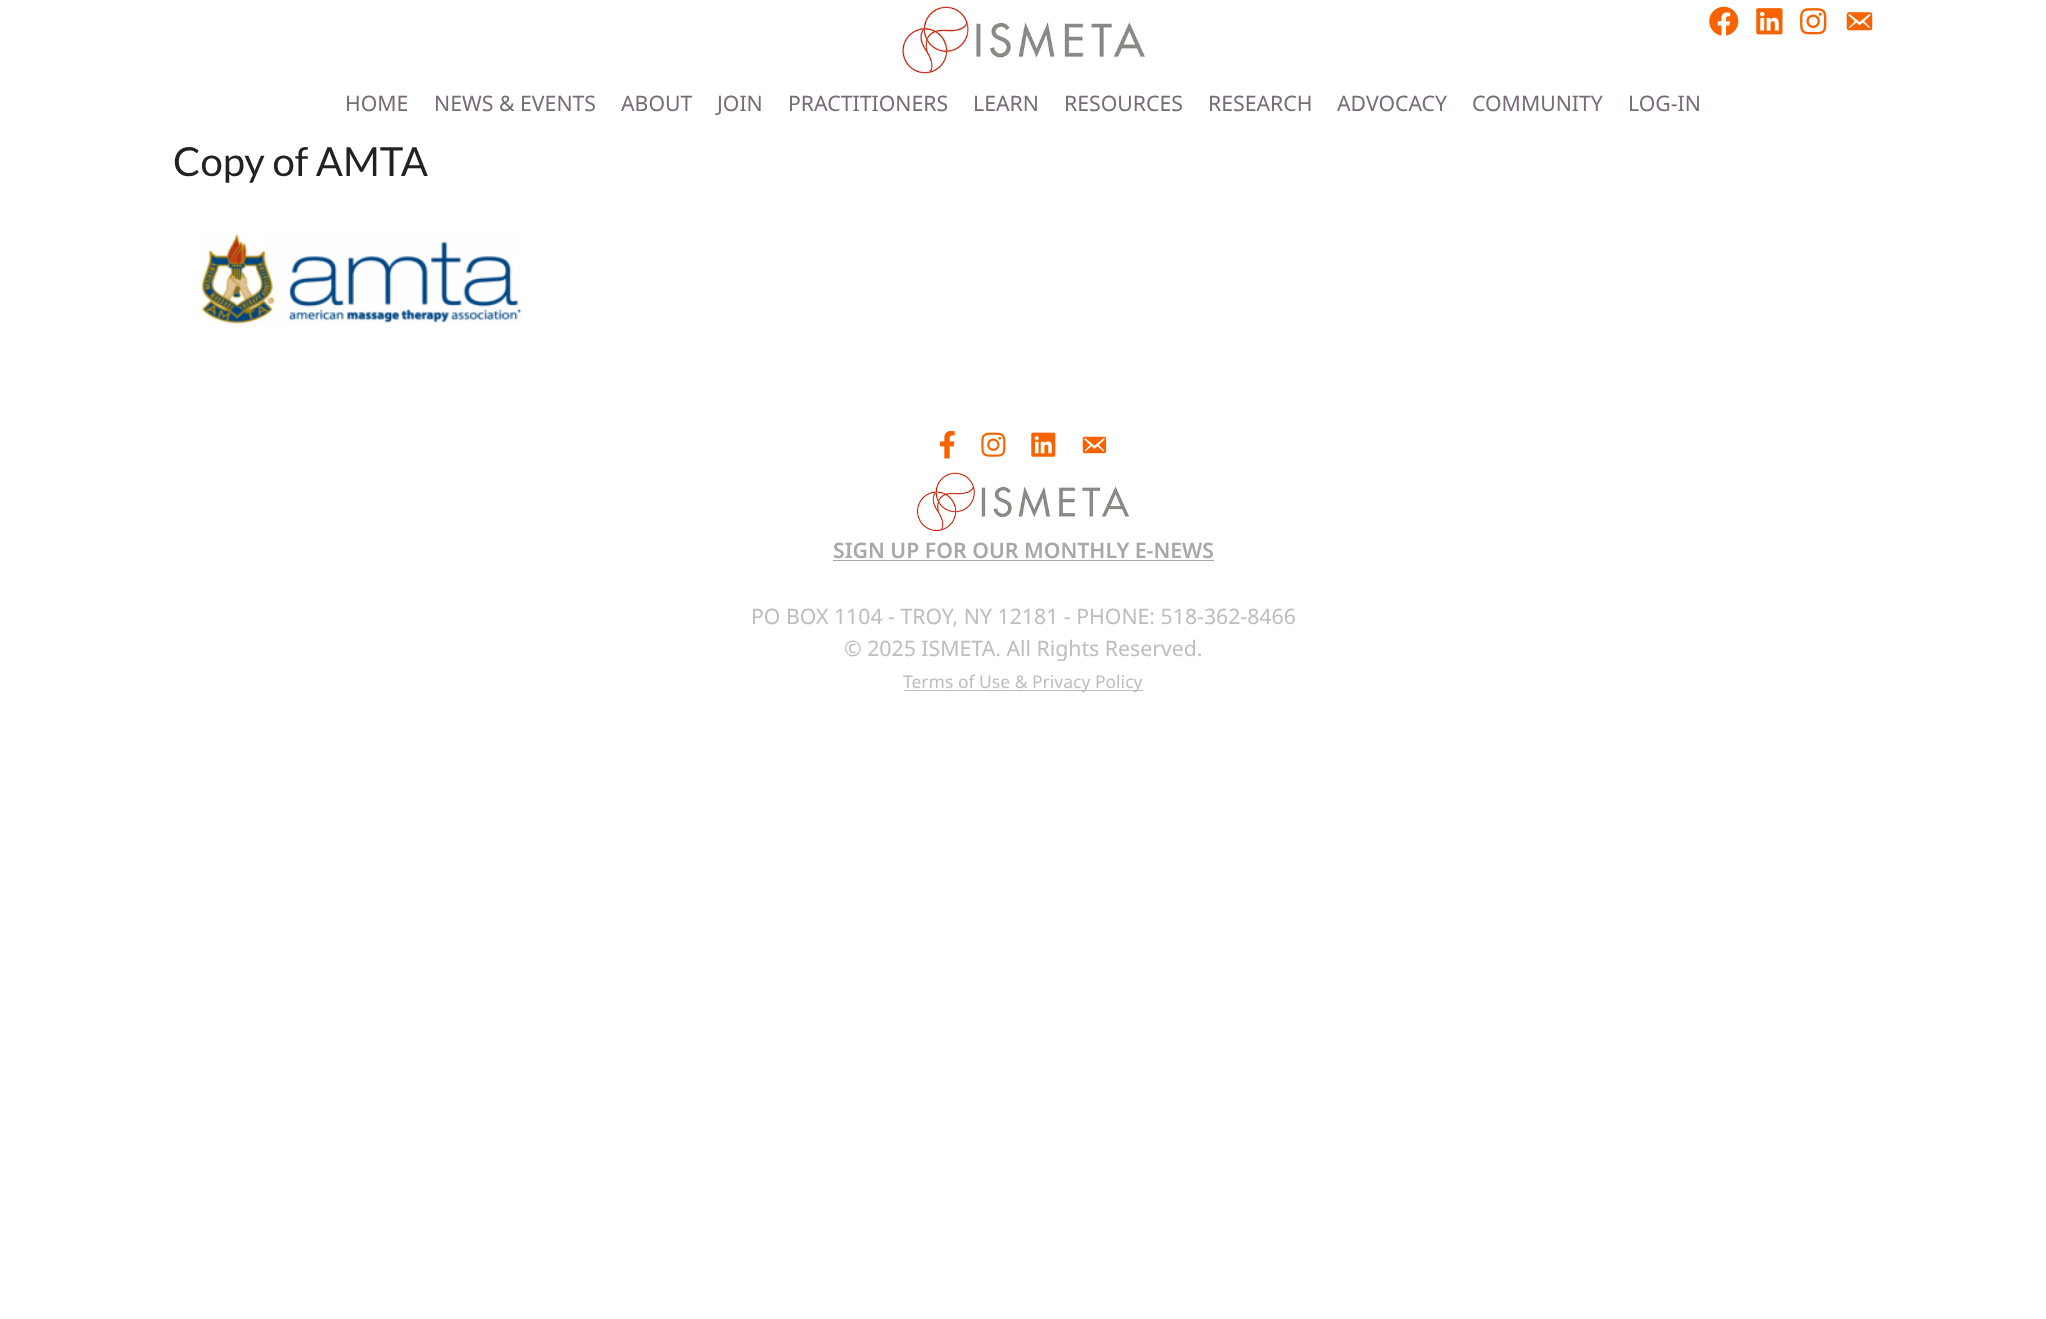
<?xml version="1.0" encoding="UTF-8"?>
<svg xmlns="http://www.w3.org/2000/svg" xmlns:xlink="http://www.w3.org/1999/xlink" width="2046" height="1319">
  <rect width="100%" height="100%" fill="#ffffff" />
  <image x="902" y="6" width="243" height="68" xlink:href="image1.png" />
  <image x="1709" y="6" width="30" height="30" xlink:href="image2.png" />
  <image x="1756" y="8" width="27" height="27" xlink:href="image3.png" />
  <image x="1800" y="8" width="27" height="27" xlink:href="image4.png" />
  <image x="1846" y="12" width="27" height="19" xlink:href="image5.png" />
  <image x="201" y="233" width="321" height="91" xlink:href="image6.png" />
  <image x="940" y="430" width="15" height="29" xlink:href="image7.png" />
  <image x="981" y="432" width="25" height="25" xlink:href="image8.png" />
  <image x="1031" y="432" width="25" height="25" xlink:href="image9.png" />
  <image x="1082" y="436" width="25" height="18" xlink:href="image10.png" />
  <image x="916" y="471" width="213" height="61" xlink:href="image11.png" />
  <rect x="833" y="560" width="381" height="1" fill="#a8a8a8" />
  <rect x="904" y="690" width="239" height="1" fill="#bdbdbd" />
  <text x="345" y="111" style="font-family: Noto Sans; font-size: 21.25px; fill: #766b77">HOME</text>
  <text x="434" y="111" style="font-family: Noto Sans; font-size: 21.25px; fill: #766b77">NEWS &amp; EVENTS</text>
  <text x="621" y="111" style="font-family: Noto Sans; font-size: 21.25px; fill: #766b77">ABOUT</text>
  <text x="717" y="111" style="font-family: Noto Sans; font-size: 21.25px; fill: #766b77">JOIN</text>
  <text x="788" y="111" style="font-family: Noto Sans; font-size: 21.25px; fill: #766b77">PRACTITIONERS</text>
  <text x="973" y="111" style="font-family: Noto Sans; font-size: 21.25px; fill: #766b77">LEARN</text>
  <text x="1064" y="111" style="font-family: Noto Sans; font-size: 21.25px; fill: #766b77">RESOURCES</text>
  <text x="1208" y="111" style="font-family: Noto Sans; font-size: 21.25px; fill: #766b77">RESEARCH</text>
  <text x="1337" y="111" style="font-family: Noto Sans; font-size: 21.25px; fill: #766b77">ADVOCACY</text>
  <text x="1472" y="111" style="font-family: Noto Sans; font-size: 21.25px; fill: #766b77">COMMUNITY</text>
  <text x="1628" y="111" style="font-family: Noto Sans; font-size: 21.25px; fill: #766b77">LOG-IN</text>
  <text x="173" y="176" style="font-family: Lato; font-size: 40px; fill: #222222">Copy of AMTA</text>
  <text x="833" y="558" style="font-family: Noto Sans; font-size: 21.25px; font-weight: 600; fill: #a8a8a8">SIGN UP FOR OUR MONTHLY E-NEWS</text>
  <text x="751" y="624" style="font-family: Noto Sans; font-size: 21.25px; fill: #bdbdbd">PO BOX 1104 - TROY, NY 12181 - PHONE: 518-362-8466</text>
  <text x="844" y="656" style="font-family: Noto Sans; font-size: 21.25px; fill: #bdbdbd">© 2025 ISMETA. All Rights Reserved.</text>
  <text x="903" y="688" style="font-family: Noto Sans; font-size: 17.5px; fill: #bdbdbd">Terms of Use &amp; Privacy Policy</text>
</svg>
